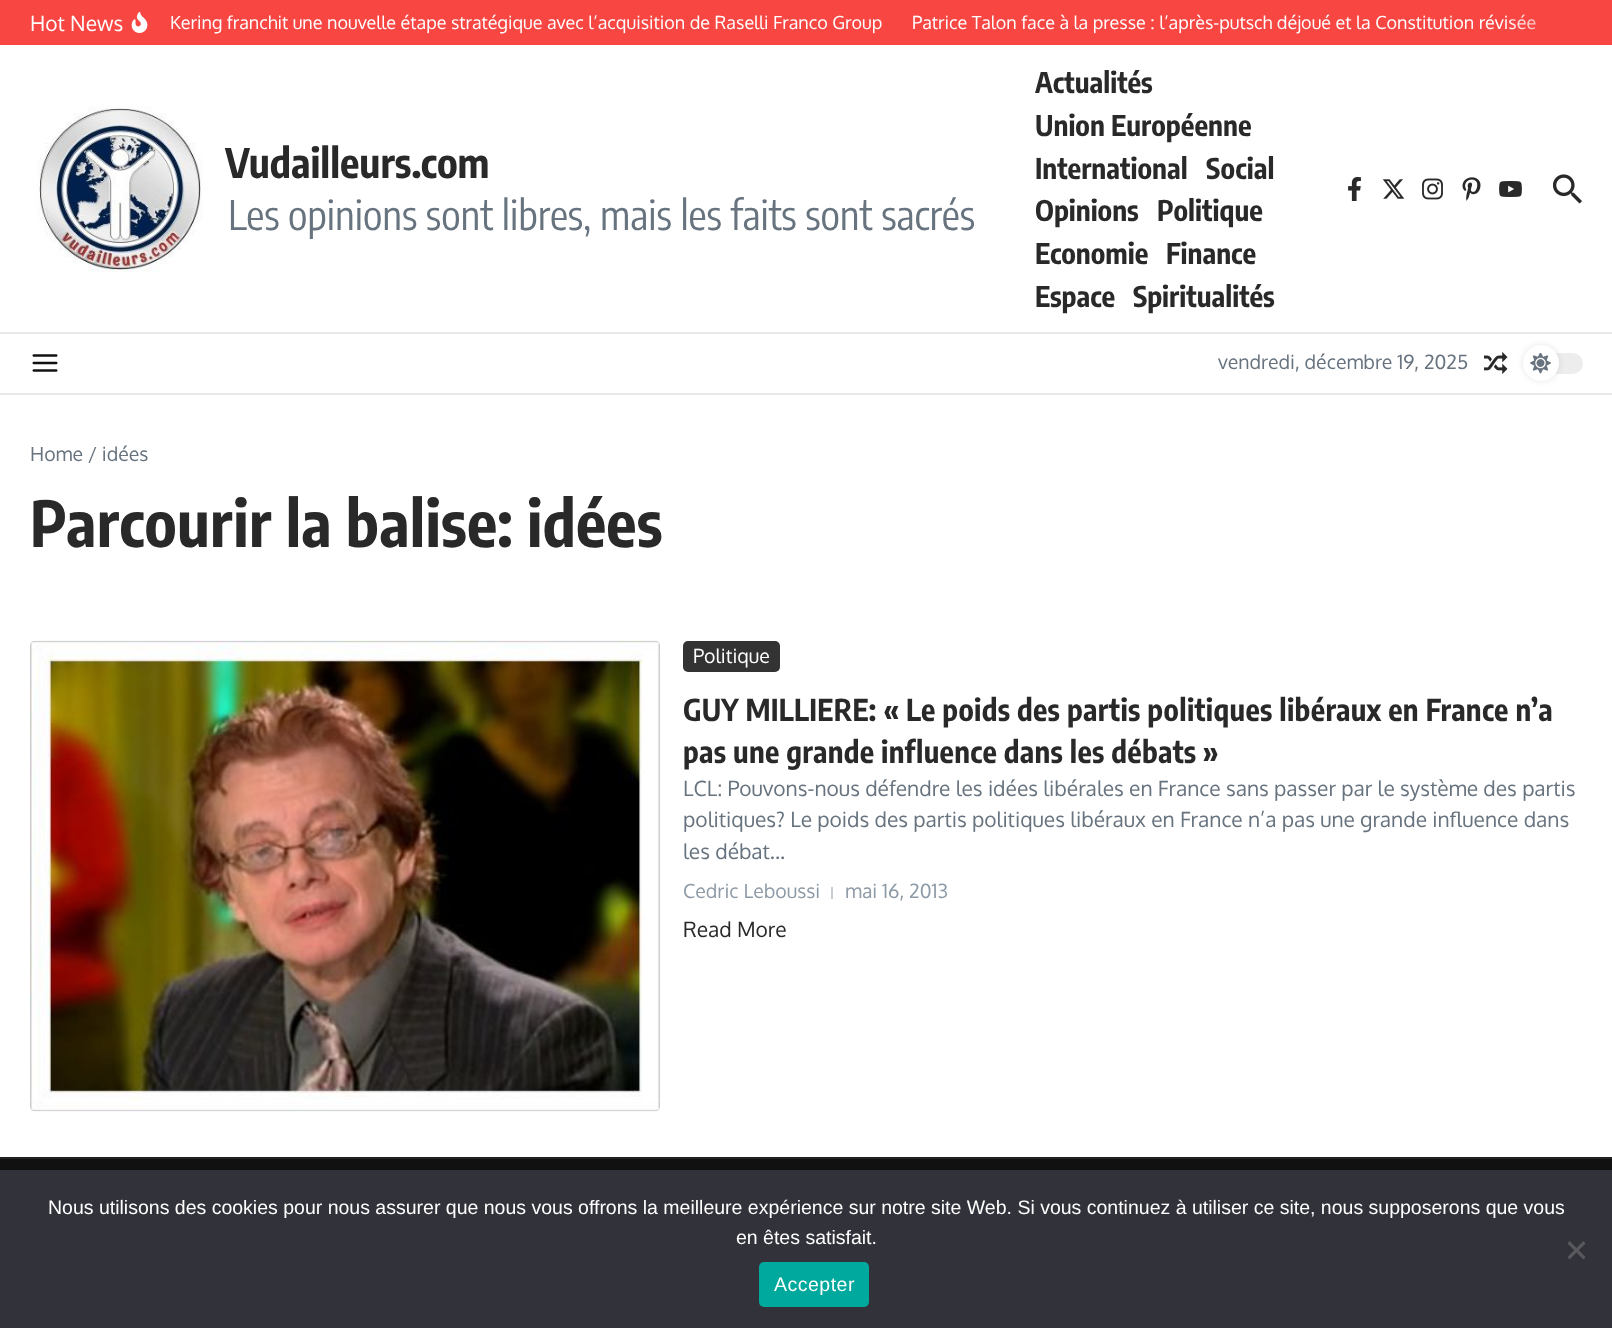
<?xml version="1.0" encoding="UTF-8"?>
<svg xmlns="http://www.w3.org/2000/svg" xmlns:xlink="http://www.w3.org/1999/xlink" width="1612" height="1328">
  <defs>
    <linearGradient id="g1" gradientUnits="userSpaceOnUse" x1="1508" y1="23" x2="1583" y2="23"><stop offset="0" stop-color="#f84643" stop-opacity="0" /><stop offset="1" stop-color="#f84643" /></linearGradient>
  </defs>
  <rect width="100%" height="100%" fill="#ffffff" />
  <rect width="1612" height="45" fill="#f84643" />
  <image x="131" y="12" width="17" height="21" xlink:href="image1.png" />
  <rect y="332" width="1612" height="2" fill="#e8e8e8" />
  <image x="37" y="106" width="166" height="166" xlink:href="image2.png" />
  <image x="1348" y="177" width="13" height="24" xlink:href="image3.png" />
  <image x="1382" y="179" width="23" height="20" xlink:href="image4.png" />
  <image x="1422" y="178" width="21" height="22" xlink:href="image5.png" />
  <image x="1462" y="177" width="19" height="24" xlink:href="image6.png" />
  <image x="1499" y="181" width="23" height="16" xlink:href="image7.png" />
  <image x="1553" y="174" width="29" height="30" xlink:href="image8.png" />
  <rect y="393" width="1612" height="2" fill="#e8e8e8" />
  <image x="32" y="354" width="26" height="18" xlink:href="image9.png" />
  <image x="1484" y="352" width="24" height="22" xlink:href="image10.png" />
  <rect x="1523" y="353" width="60" height="21" rx="10.5" fill="#ededed" />
  <rect x="1523" y="345" width="36" height="36" rx="18" fill="#000000" fill-opacity="0.1" filter="blur(3px)" />
  <circle cx="1541" cy="363" r="18" fill="#ffffff" />
  <image x="1530" y="353" width="21" height="21" xlink:href="image11.png" />
  <image x="30" y="640" width="630" height="472" xlink:href="image12.png" />
  <rect x="683" y="641" width="97" height="31" rx="5" fill="#333333" />
  <rect x="831" y="887" width="2" height="12" fill="#c7cdd3" />
  <rect y="1159" width="1612" height="11" fill="#111111" />
  <rect y="1157" width="1612" height="2" fill="#222222" />
  <rect y="1170" width="1612" height="158" fill="#32323a" />
  <path d="M 1583.5 1241 l 2 2.5 l -16 16 l -2 -2.5 z" fill="#59595d" />
  <path d="M 1567.5 1243.5 l 2 -2.5 l 16 16 l -2 2.5 z" fill="#59595d" />
  <rect x="759" y="1262" width="110" height="45" rx="5" fill="#00a99d" />
  <text x="30" y="31" style="font-family: Oxygen; font-size: 21px; fill: #ffffff">Hot News</text>
  <text x="170" y="29" style="font-family: Oxygen; font-size: 18px; fill: #ffffff">Kering franchit une nouvelle étape stratégique avec l’acquisition de Raselli Franco Group</text>
  <text x="912" y="29" style="font-family: Oxygen; font-size: 18px; fill: #ffffff">Patrice Talon face à la presse : l’après-putsch déjoué et la Constitution révisée</text>
  <rect x="1510" y="14" width="26" height="16" fill="url(#g1)" />
  <text x="225" y="178" style="font-family: Encode Sans Condensed; font-size: 40.5px; font-weight: bold; fill: #292929">Vudailleurs.com</text>
  <text x="228" y="230" style="font-family: Encode Sans Condensed; font-size: 40.5px; fill: #67737e">Les opinions sont libres, mais les faits sont sacrés</text>
  <text x="1035" y="93" style="font-family: Encode Sans Condensed; font-size: 28.5px; font-weight: bold; fill: #292929">Actualités</text>
  <text x="1035" y="136" style="font-family: Encode Sans Condensed; font-size: 28.5px; font-weight: bold; fill: #292929">Union Européenne</text>
  <text x="1035" y="179" style="font-family: Encode Sans Condensed; font-size: 28.5px; font-weight: bold; fill: #292929">International</text>
  <text x="1206" y="179" style="font-family: Encode Sans Condensed; font-size: 28.5px; font-weight: bold; fill: #292929">Social</text>
  <text x="1035" y="221" style="font-family: Encode Sans Condensed; font-size: 28.5px; font-weight: bold; fill: #292929">Opinions</text>
  <text x="1157" y="221" style="font-family: Encode Sans Condensed; font-size: 28.5px; font-weight: bold; fill: #292929">Politique</text>
  <text x="1035" y="264" style="font-family: Encode Sans Condensed; font-size: 28.5px; font-weight: bold; fill: #292929">Economie</text>
  <text x="1166" y="264" style="font-family: Encode Sans Condensed; font-size: 28.5px; font-weight: bold; fill: #292929">Finance</text>
  <text x="1035" y="307" style="font-family: Encode Sans Condensed; font-size: 28.5px; font-weight: bold; fill: #292929">Espace</text>
  <text x="1133" y="307" style="font-family: Encode Sans Condensed; font-size: 28.5px; font-weight: bold; fill: #292929">Spiritualités</text>
  <text x="1218" y="369" style="font-family: Oxygen; font-size: 19.5px; fill: #67737e">vendredi, décembre 19, 2025</text>
  <text x="30" y="461" style="font-family: Oxygen; font-size: 19.5px; fill: #67737e">Home / idées</text>
  <text x="30" y="547" style="font-family: Encode Sans Condensed; font-size: 63px; font-weight: bold; letter-spacing: 0.3px; fill: #292929">Parcourir la balise: idées</text>
  <text x="693" y="663" style="font-family: Oxygen; font-size: 19.5px; fill: #ffffff">Politique</text>
  <text x="683" y="721" style="font-family: Encode Sans Condensed; font-size: 30px; font-weight: bold; letter-spacing: 0.3px; fill: #292929">GUY MILLIERE: « Le poids des partis politiques libéraux en France n’a</text>
  <text x="683" y="763" style="font-family: Encode Sans Condensed; font-size: 30px; font-weight: bold; letter-spacing: 0.3px; fill: #292929">pas une grande influence dans les débats »</text>
  <text x="683" y="796" style="font-family: Oxygen; font-size: 21px; fill: #67737e">LCL: Pouvons-nous défendre les idées libérales en France sans passer par le système des partis</text>
  <text x="683" y="827" style="font-family: Oxygen; font-size: 21px; fill: #67737e">politiques? Le poids des partis politiques libéraux en France n’a pas une grande influence dans</text>
  <text x="683" y="859" style="font-family: Oxygen; font-size: 21px; fill: #67737e">les débat...</text>
  <text x="683" y="898" style="font-family: Oxygen; font-size: 19.5px; fill: #8e9ba7">Cedric Leboussi</text>
  <text x="845" y="898" style="font-family: Oxygen; font-size: 19.5px; fill: #8e9ba7">mai 16, 2013</text>
  <text x="683" y="937" style="font-family: Oxygen; font-size: 21px; fill: #292929">Read More</text>
  <text x="48" y="1214" style="font-family: Liberation Sans; font-size: 19.5px; fill: #ffffff">Nous utilisons des cookies pour nous assurer que nous vous offrons la meilleure expérience sur notre site Web. Si vous continuez à utiliser ce site, nous supposerons que vous</text>
  <text x="736" y="1244" style="font-family: Liberation Sans; font-size: 19.5px; fill: #ffffff">en êtes satisfait.</text>
  <text x="774" y="1291" style="font-family: Liberation Sans; font-size: 19.5px; letter-spacing: 0.5px; fill: #ffffff">Accepter</text>
</svg>
